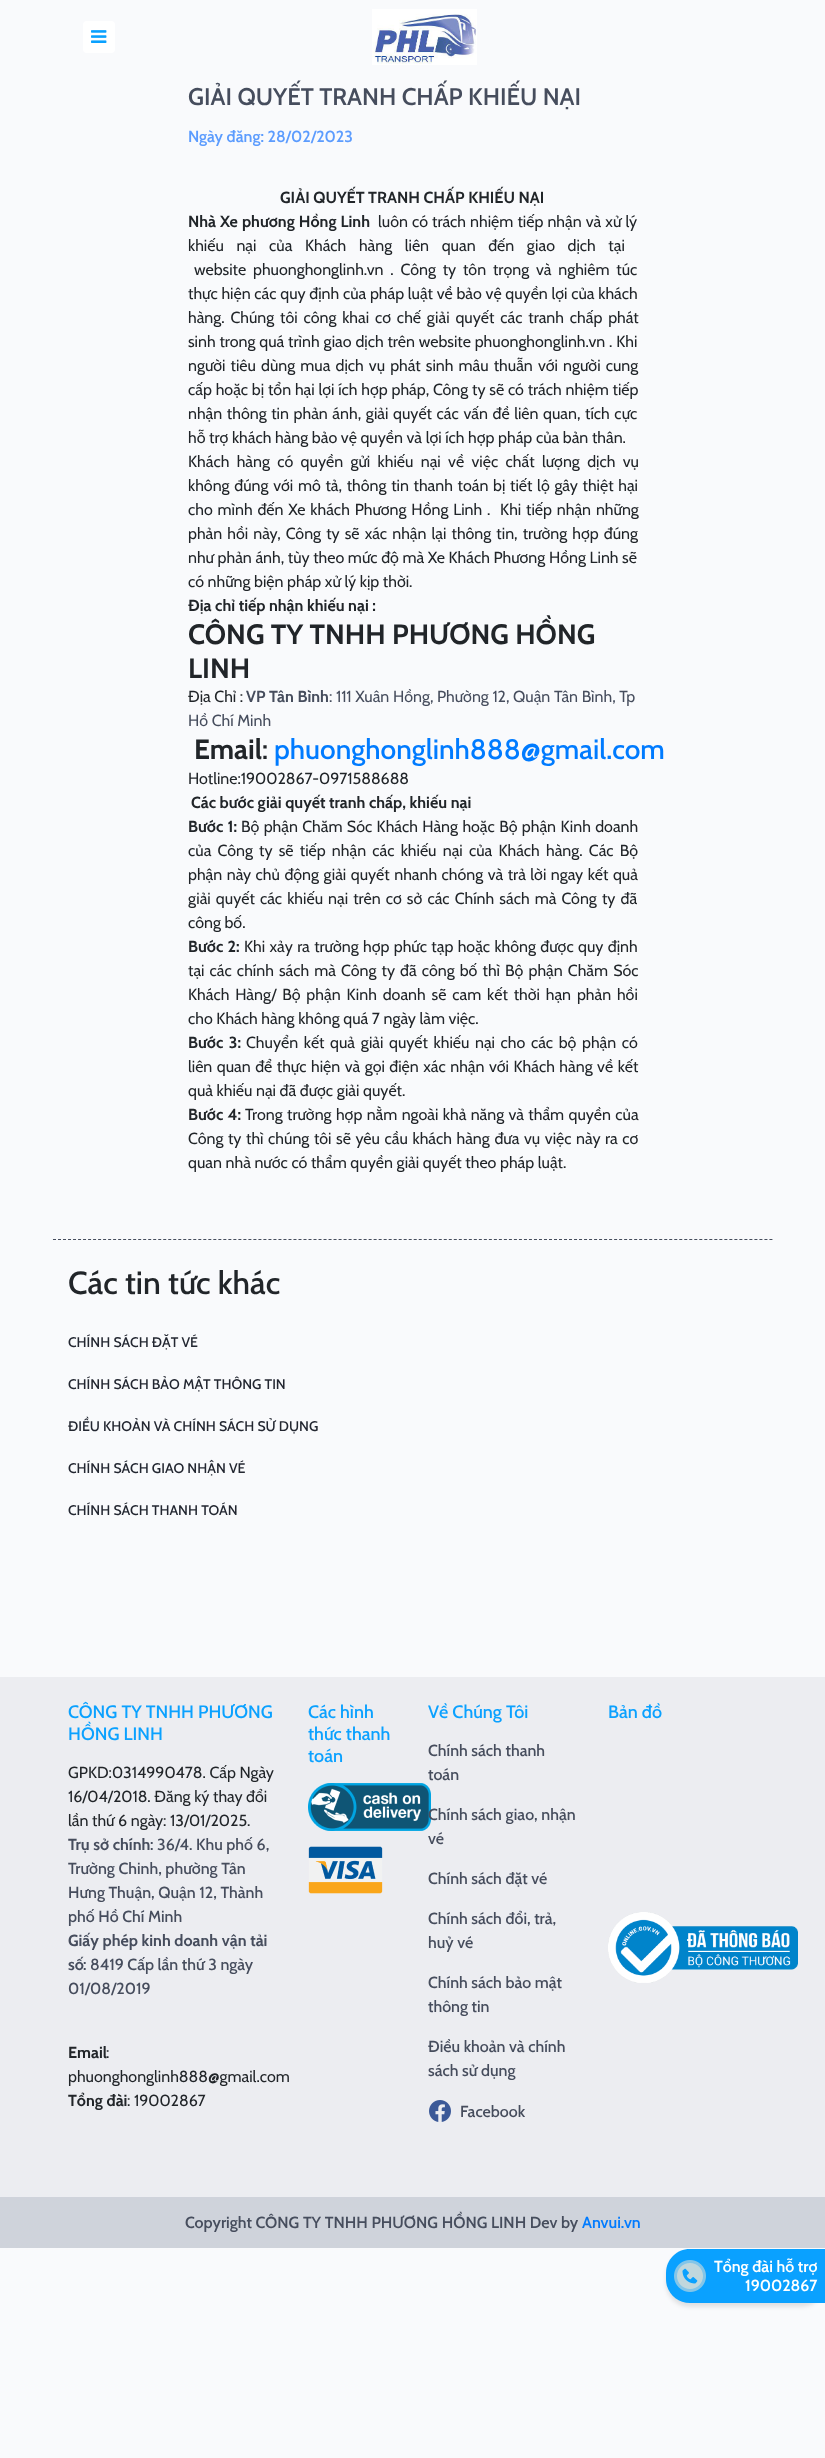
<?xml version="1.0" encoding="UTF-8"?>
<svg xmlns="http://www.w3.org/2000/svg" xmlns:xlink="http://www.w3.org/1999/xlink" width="825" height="2458">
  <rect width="100%" height="100%" fill="#f9fafc" />
  <rect x="83" y="21" width="32" height="32" rx="4" fill="#ffffff" />
  <image x="91" y="30" width="16" height="13" xlink:href="image1.png" />
  <image x="372" y="9" width="105" height="56" xlink:href="image2.png" />
  <path d="M 53 1239.5 h 720" fill="none" stroke="#464d5d" stroke-dasharray="3 2.01" />
  <rect y="1677" width="825" height="520" fill="#ecedf1" />
  <image x="308" y="1783" width="123" height="48" xlink:href="image3.png" />
  <image x="308" y="1846" width="75" height="48" xlink:href="image4.png" />
  <image x="429" y="2100" width="22" height="22" xlink:href="image5.png" />
  <image x="608" y="1912" width="190" height="71" xlink:href="image6.png" />
  <rect y="2197" width="825" height="51" fill="#cfd3db" />
  <rect x="666" y="2253" width="159" height="54" rx="24" fill="#000000" fill-opacity="0.1" filter="blur(2px)" />
  <path d="M 690 2249 h 135 v 54 h -135 c -13.5 0 -24 -10.5 -24 -24 v -6 c 0 -13.5 10.5 -24 24 -24 z" fill="#0aa1ff" />
  <image x="674" y="2260" width="32" height="32" xlink:href="image7.png" />
  <text x="188" y="105" style="font-family: Cabin; font-size: 24px; font-weight: 600; fill: #464d5d">GIẢI QUYẾT TRANH CHẤP KHIẾU NẠI</text>
  <text x="188" y="142" style="font-family: Cabin; font-size: 16px; font-weight: 600; fill: #5c9cfe">Ngày đăng: 28/02/2023</text>
  <text x="280" y="203" style="font-family: Cabin; font-size: 16px; font-weight: bold; fill: #212529">GIẢI QUYẾT TRANH CHẤP KHIẾU NẠI</text>
  <text x="188" y="227" word-spacing="0.5" style="font-family: Cabin; font-size: 16px; font-weight: bold; fill: #212529">Nhà Xe phương Hồng Linh</text>
  <text x="378" y="227" word-spacing="0.5" style="font-family: Cabin; font-size: 16px; fill: #212529">luôn có trách nhiệm tiếp nhận và xử lý</text>
  <text x="188" y="251" word-spacing="9" style="font-family: Cabin; font-size: 16px; fill: #212529">khiếu nại của Khách hàng liên quan đến giao dịch tại</text>
  <text x="194" y="275" word-spacing="3.25" style="font-family: Cabin; font-size: 16px; fill: #212529">website phuonghonglinh.vn . Công ty tôn trọng và nghiêm túc</text>
  <text x="188" y="299" word-spacing="0.1" style="font-family: Cabin; font-size: 16px; fill: #212529">thực hiện các quy định của pháp luật về bảo vệ quyền lợi của khách</text>
  <text x="188" y="323" word-spacing="2.25" style="font-family: Cabin; font-size: 16px; fill: #212529">hàng. Chúng tôi công khai cơ chế giải quyết các tranh chấp phát</text>
  <text x="188" y="347" word-spacing="0.25" style="font-family: Cabin; font-size: 16px; fill: #212529">sinh trong quá trình giao dịch trên website phuonghonglinh.vn . Khi</text>
  <text x="188" y="371" word-spacing="1.5" style="font-family: Cabin; font-size: 16px; fill: #212529">người tiêu dùng mua dịch vụ phát sinh mâu thuẫn với người cung</text>
  <text x="188" y="395" word-spacing="0.2" style="font-family: Cabin; font-size: 16px; fill: #212529">cấp hoặc bị tổn hại lợi ích hợp pháp, Công ty sẽ có trách nhiệm tiếp</text>
  <text x="188" y="419" word-spacing="1" style="font-family: Cabin; font-size: 16px; fill: #212529">nhận thông tin phản ánh, giải quyết các vấn đề liên quan, tích cực</text>
  <text x="188" y="443" style="font-family: Cabin; font-size: 16px; fill: #212529">hỗ trợ khách hàng bảo vệ quyền và lợi ích hợp pháp của bản thân.</text>
  <text x="188" y="467" word-spacing="3.75" style="font-family: Cabin; font-size: 16px; fill: #212529">Khách hàng có quyền gửi khiếu nại về việc chất lượng dịch vụ</text>
  <text x="188" y="491" word-spacing="1.1" style="font-family: Cabin; font-size: 16px; fill: #212529">không đúng với mô tả, thông tin thanh toán bị tiết lộ gây thiệt hại</text>
  <text x="188" y="515" word-spacing="1.25" style="font-family: Cabin; font-size: 16px; fill: #212529" xml:space="preserve">cho mình đến Xe khách Phương Hồng Linh .  Khi tiếp nhận những</text>
  <text x="188" y="539" word-spacing="1.5" style="font-family: Cabin; font-size: 16px; fill: #212529">phản hồi này, Công ty sẽ xác nhận lại thông tin, trường hợp đúng</text>
  <text x="188" y="563" style="font-family: Cabin; font-size: 16px; fill: #212529">như phản ánh, tùy theo mức độ mà Xe Khách Phương Hồng Linh sẽ</text>
  <text x="188" y="587" style="font-family: Cabin; font-size: 16px; fill: #212529">có những biện pháp xử lý kịp thời.</text>
  <text x="188" y="611" style="font-family: Cabin; font-size: 16px; font-weight: bold; fill: #212529">Địa chỉ tiếp nhận khiếu nại :</text>
  <text x="188" y="644" style="font-family: Cabin; font-size: 28px; font-weight: bold; fill: #212529">CÔNG TY TNHH PHƯƠNG HỒNG</text>
  <text x="188" y="678" style="font-family: Cabin; font-size: 28px; font-weight: bold; fill: #212529">LINH</text>
  <text x="188" y="702" style="font-family: Cabin; font-size: 16px; fill: #212529">Địa Chỉ :</text>
  <text x="246" y="702" style="font-family: Cabin; font-size: 16px; font-weight: bold; fill: #464d5d">VP Tân Bình</text>
  <text x="329" y="702" style="font-family: Cabin; font-size: 16px; fill: #464d5d">: 111 Xuân Hồng, Phường 12, Quận Tân Bình, Tp</text>
  <text x="188" y="726" style="font-family: Cabin; font-size: 16px; fill: #464d5d">Hồ Chí Minh</text>
  <text x="194" y="759" style="font-family: Cabin; font-size: 28px; font-weight: bold; fill: #212529">Email</text>
  <text x="262" y="759" style="font-family: Cabin; font-size: 28px; font-weight: 500; fill: #212529">:</text>
  <text x="274" y="759" style="font-family: Cabin; font-size: 28px; font-weight: 500; fill: #007bff">phuonghonglinh888@gmail.com</text>
  <text x="188" y="784" style="font-family: Cabin; font-size: 16px; fill: #212529">Hotline:19002867-0971588688</text>
  <text x="191" y="808" style="font-family: Cabin; font-size: 16px; font-weight: bold; fill: #212529">Các bước giải quyết tranh chấp, khiếu nại</text>
  <text x="188" y="832" word-spacing="0.75" style="font-family: Cabin; font-size: 16px; font-weight: bold; fill: #212529">Bước 1:</text>
  <text x="241" y="832" word-spacing="0.75" style="font-family: Cabin; font-size: 16px; fill: #212529">Bộ phận Chăm Sóc Khách Hàng hoặc Bộ phận Kinh doanh</text>
  <text x="188" y="856" word-spacing="2.6" style="font-family: Cabin; font-size: 16px; fill: #212529">của Công ty sẽ tiếp nhận các khiếu nại của Khách hàng. Các Bộ</text>
  <text x="188" y="880" word-spacing="0.9" style="font-family: Cabin; font-size: 16px; fill: #212529">phận này chủ động giải quyết nhanh chóng và trả lời ngay kết quả</text>
  <text x="188" y="904" word-spacing="1.5" style="font-family: Cabin; font-size: 16px; fill: #212529">giải quyết các khiếu nại trên cơ sở các Chính sách mà Công ty đã</text>
  <text x="188" y="928" style="font-family: Cabin; font-size: 16px; fill: #212529">công bố.</text>
  <text x="188" y="952" word-spacing="0.75" style="font-family: Cabin; font-size: 16px; font-weight: bold; fill: #212529">Bước 2:</text>
  <text x="244" y="952" word-spacing="0.75" style="font-family: Cabin; font-size: 16px; fill: #212529">Khi xảy ra trường hợp phức tạp hoặc không được quy định</text>
  <text x="188" y="976" word-spacing="1.5" style="font-family: Cabin; font-size: 16px; fill: #212529">tại các chính sách mà Công ty đã công bố thì Bộ phận Chăm Sóc</text>
  <text x="188" y="1000" word-spacing="2.25" style="font-family: Cabin; font-size: 16px; fill: #212529">Khách Hàng/ Bộ phận Kinh doanh sẽ cam kết thời hạn phản hồi</text>
  <text x="188" y="1024" style="font-family: Cabin; font-size: 16px; fill: #212529">cho Khách hàng không quá 7 ngày làm việc.</text>
  <text x="188" y="1048" word-spacing="2" style="font-family: Cabin; font-size: 16px; font-weight: bold; fill: #212529">Bước 3:</text>
  <text x="246" y="1048" word-spacing="2" style="font-family: Cabin; font-size: 16px; fill: #212529">Chuyển kết quả giải quyết khiếu nại cho các bộ phận có</text>
  <text x="188" y="1072" word-spacing="0.9" style="font-family: Cabin; font-size: 16px; fill: #212529">liên quan để thực hiện và gọi điện xác nhận với Khách hàng về kết</text>
  <text x="188" y="1096" style="font-family: Cabin; font-size: 16px; fill: #212529">quả khiếu nại đã được giải quyết.</text>
  <text x="188" y="1120" word-spacing="0.75" style="font-family: Cabin; font-size: 16px; font-weight: bold; fill: #212529">Bước 4:</text>
  <text x="245" y="1120" word-spacing="0.75" style="font-family: Cabin; font-size: 16px; fill: #212529">Trong trường hợp nằm ngoài khả năng và thẩm quyền của</text>
  <text x="188" y="1144" word-spacing="1" style="font-family: Cabin; font-size: 16px; fill: #212529">Công ty thì chúng tôi sẽ yêu cầu khách hàng đưa vụ việc này ra cơ</text>
  <text x="188" y="1168" style="font-family: Cabin; font-size: 16px; fill: #212529">quan nhà nước có thẩm quyền giải quyết theo pháp luật.</text>
  <text x="68" y="1294" style="font-family: Cabin; font-size: 32px; font-weight: 500; fill: #212529">Các tin tức khác</text>
  <text x="68" y="1347" style="font-family: Cabin; font-size: 14px; font-weight: 500; fill: #232731">CHÍNH SÁCH ĐẶT VÉ</text>
  <text x="68" y="1389" style="font-family: Cabin; font-size: 14px; font-weight: 500; fill: #232731">CHÍNH SÁCH BẢO MẬT THÔNG TIN</text>
  <text x="68" y="1431" style="font-family: Cabin; font-size: 14px; font-weight: 500; fill: #232731">ĐIỀU KHOẢN VÀ CHÍNH SÁCH SỬ DỤNG</text>
  <text x="68" y="1473" style="font-family: Cabin; font-size: 14px; font-weight: 500; fill: #232731">CHÍNH SÁCH GIAO NHẬN VÉ</text>
  <text x="68" y="1515" style="font-family: Cabin; font-size: 14px; font-weight: 500; fill: #232731">CHÍNH SÁCH THANH TOÁN</text>
  <text x="68" y="1718" style="font-family: Cabin; font-size: 18px; font-weight: 500; fill: #0aa1ff">CÔNG TY TNHH PHƯƠNG</text>
  <text x="68" y="1740" style="font-family: Cabin; font-size: 18px; font-weight: 500; fill: #0aa1ff">HỒNG LINH</text>
  <text x="68" y="1778" style="font-family: Cabin; font-size: 16px; fill: #212529">GPKD:0314990478. Cấp Ngày</text>
  <text x="68" y="1802" style="font-family: Cabin; font-size: 16px; fill: #212529">16/04/2018. Đăng ký thay đổi</text>
  <text x="68" y="1826" style="font-family: Cabin; font-size: 16px; fill: #212529">lần thứ 6 ngày: 13/01/2025.</text>
  <text x="68" y="1850" style="font-family: Cabin; font-size: 16px; font-weight: bold; fill: #464d5d">Trụ sở chính</text>
  <text x="150" y="1850" style="font-family: Cabin; font-size: 16px; font-weight: 500; fill: #464d5d">: 36/4. Khu phố 6,</text>
  <text x="68" y="1874" style="font-family: Cabin; font-size: 16px; font-weight: 500; fill: #464d5d">Trường Chinh, phường Tân</text>
  <text x="68" y="1898" style="font-family: Cabin; font-size: 16px; font-weight: 500; fill: #464d5d">Hưng Thuận, Quận 12, Thành</text>
  <text x="68" y="1922" style="font-family: Cabin; font-size: 16px; font-weight: 500; fill: #464d5d">phố Hồ Chí Minh</text>
  <text x="68" y="1946" style="font-family: Cabin; font-size: 16px; font-weight: bold; fill: #464d5d">Giấy phép kinh doanh vận tải</text>
  <text x="68" y="1970" style="font-family: Cabin; font-size: 16px; font-weight: bold; fill: #464d5d">số</text>
  <text x="83" y="1970" style="font-family: Cabin; font-size: 16px; font-weight: 500; fill: #464d5d">: 8419 Cấp lần thứ 3 ngày</text>
  <text x="68" y="1994" style="font-family: Cabin; font-size: 16px; font-weight: 500; fill: #464d5d">01/08/2019</text>
  <text x="68" y="2058" style="font-family: Cabin; font-size: 16px; font-weight: bold; fill: #212529">Email</text>
  <text x="106" y="2058" style="font-family: Cabin; font-size: 16px; fill: #212529">:</text>
  <text x="68" y="2082" style="font-family: Cabin; font-size: 16px; fill: #212529">phuonghonglinh888@gmail.com</text>
  <text x="68" y="2106" style="font-family: Cabin; font-size: 16px; font-weight: bold; fill: #212529">Tổng đài</text>
  <text x="127" y="2106" style="font-family: Cabin; font-size: 16px; fill: #212529">: 19002867</text>
  <text x="308" y="1718" style="font-family: Cabin; font-size: 18px; font-weight: 500; fill: #0aa1ff">Các hình</text>
  <text x="308" y="1740" style="font-family: Cabin; font-size: 18px; font-weight: 500; fill: #0aa1ff">thức thanh</text>
  <text x="308" y="1762" style="font-family: Cabin; font-size: 18px; font-weight: 500; fill: #0aa1ff">toán</text>
  <text x="428" y="1718" style="font-family: Cabin; font-size: 18px; font-weight: 500; fill: #0aa1ff">Về Chúng Tôi</text>
  <text x="428" y="1756" style="font-family: Cabin; font-size: 16px; font-weight: 500; fill: #464d5d">Chính sách thanh</text>
  <text x="428" y="1780" style="font-family: Cabin; font-size: 16px; font-weight: 500; fill: #464d5d">toán</text>
  <text x="428" y="1820" style="font-family: Cabin; font-size: 16px; font-weight: 500; fill: #464d5d">Chính sách giao, nhận</text>
  <text x="428" y="1844" style="font-family: Cabin; font-size: 16px; font-weight: 500; fill: #464d5d">vé</text>
  <text x="428" y="1884" style="font-family: Cabin; font-size: 16px; font-weight: 500; fill: #464d5d">Chính sách đặt vé</text>
  <text x="428" y="1924" style="font-family: Cabin; font-size: 16px; font-weight: 500; fill: #464d5d">Chính sách đổi, trả,</text>
  <text x="428" y="1948" style="font-family: Cabin; font-size: 16px; font-weight: 500; fill: #464d5d">huỷ vé</text>
  <text x="428" y="1988" style="font-family: Cabin; font-size: 16px; font-weight: 500; fill: #464d5d">Chính sách bảo mật</text>
  <text x="428" y="2012" style="font-family: Cabin; font-size: 16px; font-weight: 500; fill: #464d5d">thông tin</text>
  <text x="428" y="2052" style="font-family: Cabin; font-size: 16px; font-weight: 500; fill: #464d5d">Điều khoản và chính</text>
  <text x="428" y="2076" style="font-family: Cabin; font-size: 16px; font-weight: 500; fill: #464d5d">sách sử dụng</text>
  <text x="460" y="2117" style="font-family: Cabin; font-size: 16px; font-weight: 500; fill: #464d5d">Facebook</text>
  <text x="608" y="1718" style="font-family: Cabin; font-size: 18px; font-weight: 500; fill: #0aa1ff">Bản đồ</text>
  <text x="185" y="2228" style="font-family: Cabin; font-size: 16px; font-weight: 600; fill: #464d5d">Copyright CÔNG TY TNHH PHƯƠNG HỒNG LINH Dev by</text>
  <text x="582" y="2228" style="font-family: Cabin; font-size: 16px; font-weight: 600; fill: #007bff">Anvui.vn</text>
  <text x="714" y="2272" style="font-family: Cabin; font-size: 16px; font-weight: 600; fill: #ffffff">Tổng đài hỗ trợ</text>
  <text x="745" y="2291" style="font-family: Cabin; font-size: 16px; font-weight: 600; fill: #ffffff">19002867</text>
</svg>
